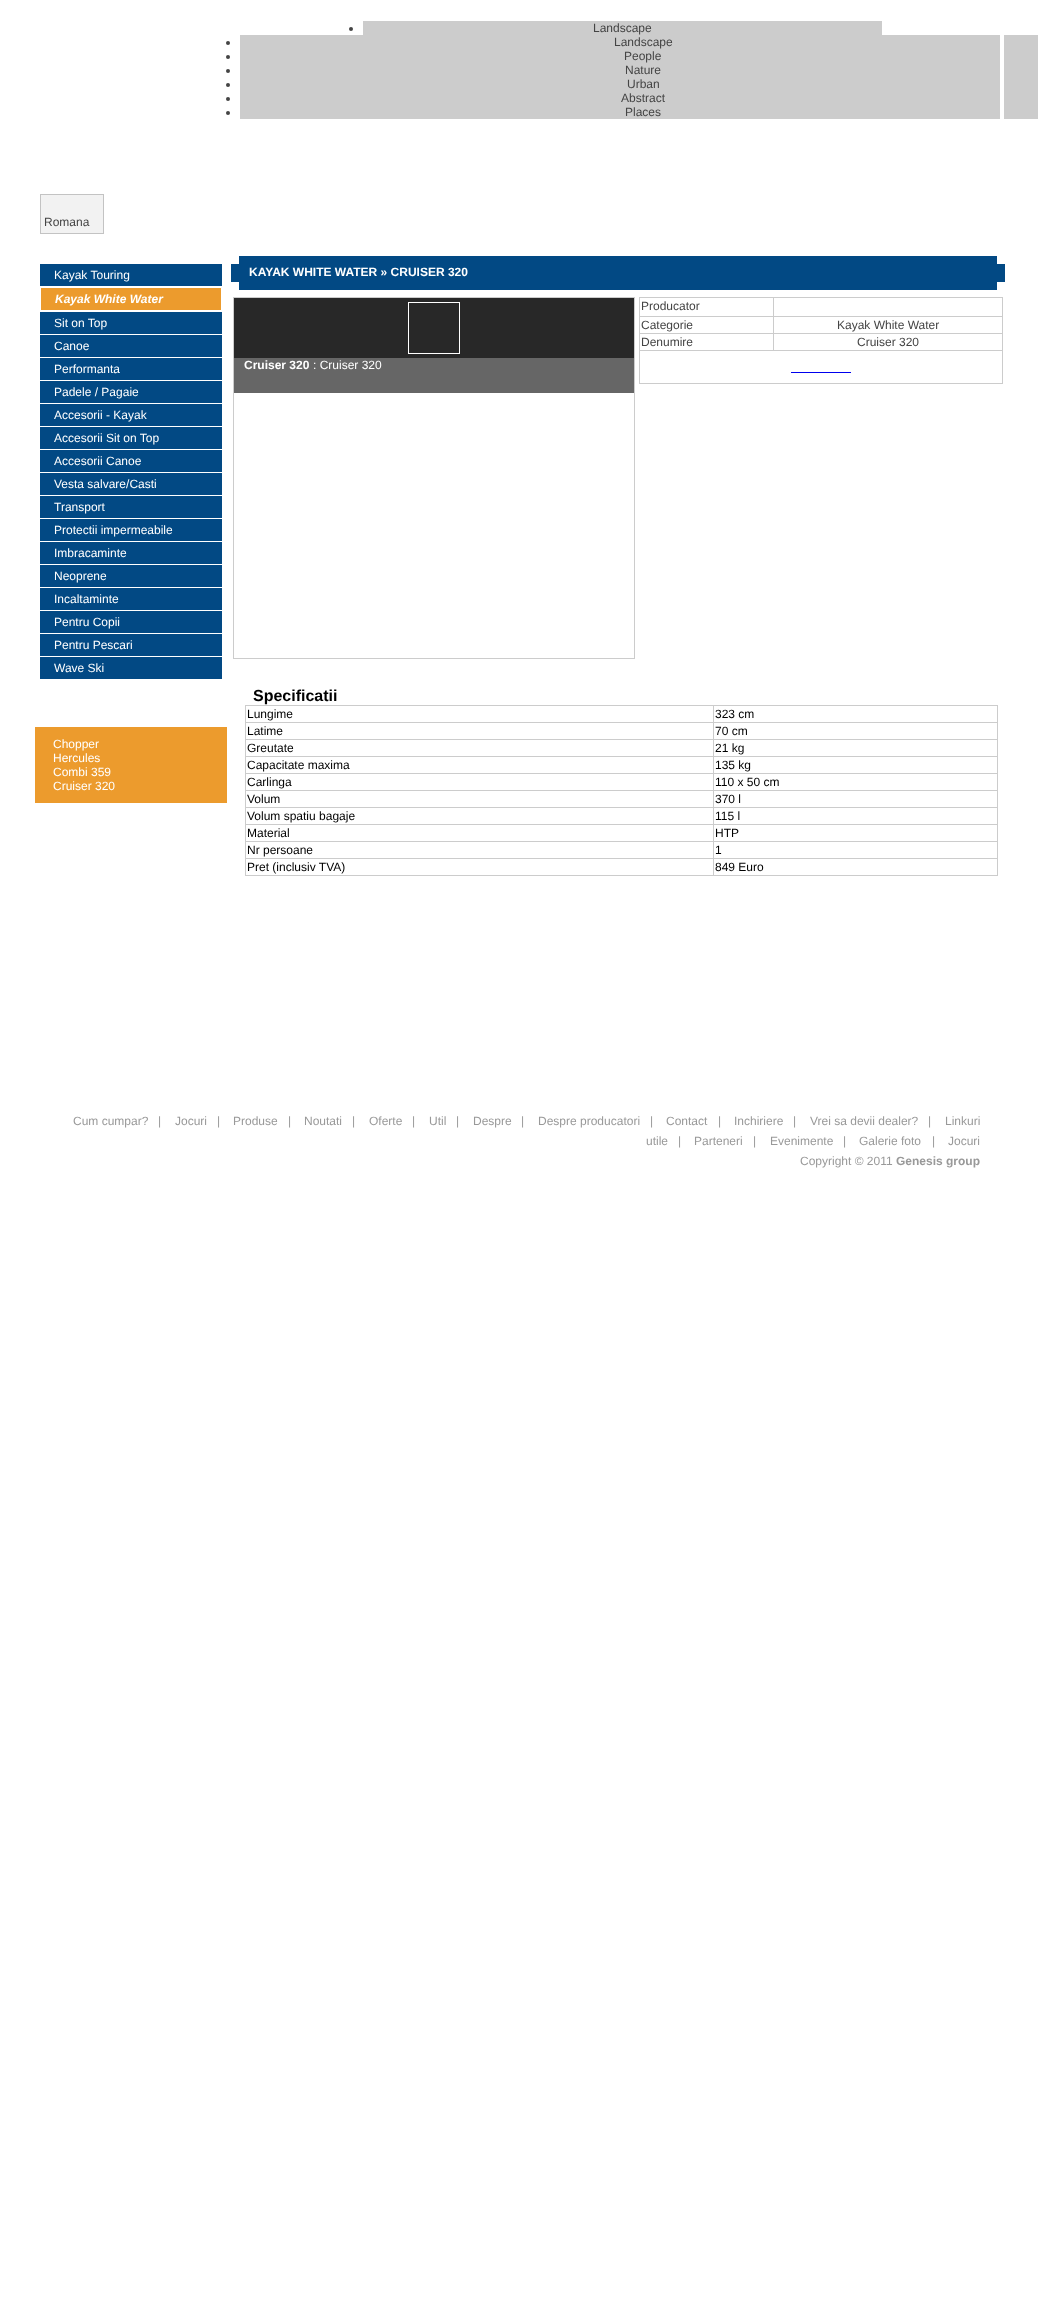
<?xml version="1.0" encoding="UTF-8"?>
<svg xmlns="http://www.w3.org/2000/svg" xmlns:xlink="http://www.w3.org/1999/xlink" width="1038" height="2317">
  <rect width="100%" height="100%" fill="#ffffff" />
  <rect x="363" y="21" width="519" height="14" fill="#cccccc" />
  <circle cx="351" cy="29" r="2" fill="#444444" />
  <rect x="240" y="35" width="798" height="84" fill="#cccccc" />
  <circle cx="228" cy="43" r="2" fill="#444444" />
  <circle cx="228" cy="57" r="2" fill="#444444" />
  <circle cx="228" cy="71" r="2" fill="#444444" />
  <circle cx="228" cy="85" r="2" fill="#444444" />
  <circle cx="228" cy="99" r="2" fill="#444444" />
  <circle cx="228" cy="113" r="2" fill="#444444" />
  <rect x="1000" y="35" width="4" height="84" fill="#ffffff" />
  <rect x="40.5" y="194.5" width="63" height="39" fill="#f2f2f2" stroke="#c3c3c3" />
  <rect x="40" y="264" width="182" height="22" fill="#024984" />
  <rect x="41" y="288" width="180" height="22" fill="#ec9b2d" />
  <rect x="40" y="312" width="182" height="22" fill="#024984" />
  <rect x="40" y="335" width="182" height="22" fill="#024984" />
  <rect x="40" y="358" width="182" height="22" fill="#024984" />
  <rect x="40" y="381" width="182" height="22" fill="#024984" />
  <rect x="40" y="404" width="182" height="22" fill="#024984" />
  <rect x="40" y="427" width="182" height="22" fill="#024984" />
  <rect x="40" y="450" width="182" height="22" fill="#024984" />
  <rect x="40" y="473" width="182" height="22" fill="#024984" />
  <rect x="40" y="496" width="182" height="22" fill="#024984" />
  <rect x="40" y="519" width="182" height="22" fill="#024984" />
  <rect x="40" y="542" width="182" height="22" fill="#024984" />
  <rect x="40" y="565" width="182" height="22" fill="#024984" />
  <rect x="40" y="588" width="182" height="22" fill="#024984" />
  <rect x="40" y="611" width="182" height="22" fill="#024984" />
  <rect x="40" y="634" width="182" height="22" fill="#024984" />
  <rect x="40" y="657" width="182" height="22" fill="#024984" />
  <rect x="35" y="727" width="192" height="76" fill="#ec9b2d" />
  <rect x="239" y="256" width="758" height="8" fill="#024984" />
  <rect x="231" y="264" width="774" height="18" fill="#024984" />
  <rect x="239" y="282" width="758" height="8" fill="#024984" />
  <rect x="639" y="297" width="364" height="1" fill="#cccccc" />
  <rect x="1002" y="297" width="1" height="87" fill="#cccccc" />
  <rect x="639" y="383" width="364" height="1" fill="#cccccc" />
  <rect x="639" y="297" width="1" height="87" fill="#cccccc" />
  <rect x="773" y="316" width="230" height="1" fill="#cccccc" />
  <rect x="773" y="333" width="230" height="1" fill="#cccccc" />
  <rect x="639" y="350" width="364" height="1" fill="#cccccc" />
  <rect x="773" y="333" width="1" height="18" fill="#cccccc" />
  <rect x="639" y="333" width="135" height="1" fill="#cccccc" />
  <rect x="773" y="316" width="1" height="18" fill="#cccccc" />
  <rect x="639" y="316" width="135" height="1" fill="#cccccc" />
  <rect x="773" y="297" width="1" height="20" fill="#cccccc" />
  <rect x="791" y="372" width="60" height="1" fill="#0000ee" />
  <rect x="233.5" y="297.5" width="401" height="361" fill="none" stroke="#cccccc" />
  <rect x="234" y="298" width="400" height="60" fill="#282828" />
  <rect x="408.5" y="302.5" width="51" height="51" fill="none" stroke="#ffffff" />
  <rect x="234" y="358" width="400" height="35" fill="#666666" />
  <rect x="245" y="705" width="753" height="1" fill="#cccccc" />
  <rect x="997" y="705" width="1" height="171" fill="#cccccc" />
  <rect x="245" y="875" width="753" height="1" fill="#cccccc" />
  <rect x="245" y="705" width="1" height="171" fill="#cccccc" />
  <rect x="713" y="722" width="285" height="1" fill="#cccccc" />
  <rect x="713" y="739" width="285" height="1" fill="#cccccc" />
  <rect x="713" y="756" width="285" height="1" fill="#cccccc" />
  <rect x="713" y="773" width="285" height="1" fill="#cccccc" />
  <rect x="713" y="790" width="285" height="1" fill="#cccccc" />
  <rect x="713" y="807" width="285" height="1" fill="#cccccc" />
  <rect x="713" y="824" width="285" height="1" fill="#cccccc" />
  <rect x="713" y="841" width="285" height="1" fill="#cccccc" />
  <rect x="713" y="858" width="285" height="1" fill="#cccccc" />
  <rect x="713" y="858" width="1" height="18" fill="#cccccc" />
  <rect x="245" y="858" width="469" height="1" fill="#cccccc" />
  <rect x="713" y="841" width="1" height="18" fill="#cccccc" />
  <rect x="245" y="841" width="469" height="1" fill="#cccccc" />
  <rect x="713" y="824" width="1" height="18" fill="#cccccc" />
  <rect x="245" y="824" width="469" height="1" fill="#cccccc" />
  <rect x="713" y="807" width="1" height="18" fill="#cccccc" />
  <rect x="245" y="807" width="469" height="1" fill="#cccccc" />
  <rect x="713" y="790" width="1" height="18" fill="#cccccc" />
  <rect x="245" y="790" width="469" height="1" fill="#cccccc" />
  <rect x="713" y="773" width="1" height="18" fill="#cccccc" />
  <rect x="245" y="773" width="469" height="1" fill="#cccccc" />
  <rect x="713" y="756" width="1" height="18" fill="#cccccc" />
  <rect x="245" y="756" width="469" height="1" fill="#cccccc" />
  <rect x="713" y="739" width="1" height="18" fill="#cccccc" />
  <rect x="245" y="739" width="469" height="1" fill="#cccccc" />
  <rect x="713" y="722" width="1" height="18" fill="#cccccc" />
  <rect x="245" y="722" width="469" height="1" fill="#cccccc" />
  <rect x="713" y="705" width="1" height="18" fill="#cccccc" />
  <text x="593" y="32" style="font-family: Liberation Sans; font-size: 12px; fill: #444444">Landscape</text>
  <text x="614" y="46" style="font-family: Liberation Sans; font-size: 12px; fill: #444444">Landscape</text>
  <text x="624" y="60" style="font-family: Liberation Sans; font-size: 12px; fill: #444444">People</text>
  <text x="625" y="74" style="font-family: Liberation Sans; font-size: 12px; fill: #444444">Nature</text>
  <text x="627" y="88" style="font-family: Liberation Sans; font-size: 12px; fill: #444444">Urban</text>
  <text x="621" y="102" style="font-family: Liberation Sans; font-size: 12px; fill: #444444">Abstract</text>
  <text x="625" y="116" style="font-family: Liberation Sans; font-size: 12px; fill: #444444">Places</text>
  <text x="44" y="226" style="font-family: Liberation Sans; font-size: 12px; fill: #444444">Romana</text>
  <text x="54" y="279" style="font-family: Liberation Sans; font-size: 12px; fill: #ffffff">Kayak Touring</text>
  <text x="55" y="303" style="font-family: Liberation Sans; font-size: 12px; font-weight: bold; font-style: italic; fill: #ffffff">Kayak White Water</text>
  <text x="54" y="327" style="font-family: Liberation Sans; font-size: 12px; fill: #ffffff">Sit on Top</text>
  <text x="54" y="350" style="font-family: Liberation Sans; font-size: 12px; fill: #ffffff">Canoe</text>
  <text x="54" y="373" style="font-family: Liberation Sans; font-size: 12px; fill: #ffffff">Performanta</text>
  <text x="54" y="396" style="font-family: Liberation Sans; font-size: 12px; fill: #ffffff">Padele / Pagaie</text>
  <text x="54" y="419" style="font-family: Liberation Sans; font-size: 12px; fill: #ffffff">Accesorii - Kayak</text>
  <text x="54" y="442" style="font-family: Liberation Sans; font-size: 12px; fill: #ffffff">Accesorii Sit on Top</text>
  <text x="54" y="465" style="font-family: Liberation Sans; font-size: 12px; fill: #ffffff">Accesorii Canoe</text>
  <text x="54" y="488" style="font-family: Liberation Sans; font-size: 12px; fill: #ffffff">Vesta salvare/Casti</text>
  <text x="54" y="511" style="font-family: Liberation Sans; font-size: 12px; fill: #ffffff">Transport</text>
  <text x="54" y="534" style="font-family: Liberation Sans; font-size: 12px; fill: #ffffff">Protectii impermeabile</text>
  <text x="54" y="557" style="font-family: Liberation Sans; font-size: 12px; fill: #ffffff">Imbracaminte</text>
  <text x="54" y="580" style="font-family: Liberation Sans; font-size: 12px; fill: #ffffff">Neoprene</text>
  <text x="54" y="603" style="font-family: Liberation Sans; font-size: 12px; fill: #ffffff">Incaltaminte</text>
  <text x="54" y="626" style="font-family: Liberation Sans; font-size: 12px; fill: #ffffff">Pentru Copii</text>
  <text x="54" y="649" style="font-family: Liberation Sans; font-size: 12px; fill: #ffffff">Pentru Pescari</text>
  <text x="54" y="672" style="font-family: Liberation Sans; font-size: 12px; fill: #ffffff">Wave Ski</text>
  <text x="53" y="748" style="font-family: Liberation Sans; font-size: 12px; fill: #ffffff">Chopper</text>
  <text x="53" y="762" style="font-family: Liberation Sans; font-size: 12px; fill: #ffffff">Hercules</text>
  <text x="53" y="776" style="font-family: Liberation Sans; font-size: 12px; fill: #ffffff">Combi 359</text>
  <text x="53" y="790" style="font-family: Liberation Sans; font-size: 12px; fill: #ffffff">Cruiser 320</text>
  <text x="249" y="276" style="font-family: Liberation Sans; font-size: 12px; font-weight: bold; fill: #ffffff">KAYAK WHITE WATER » CRUISER 320</text>
  <text x="641" y="310" style="font-family: Liberation Sans; font-size: 12px; fill: #444444">Producator</text>
  <text x="641" y="329" style="font-family: Liberation Sans; font-size: 12px; fill: #444444">Categorie</text>
  <text x="837" y="329" style="font-family: Liberation Sans; font-size: 12px; fill: #444444">Kayak White Water</text>
  <text x="641" y="346" style="font-family: Liberation Sans; font-size: 12px; fill: #444444">Denumire</text>
  <text x="857" y="346" style="font-family: Liberation Sans; font-size: 12px; fill: #444444">Cruiser 320</text>
  <text x="244" y="369" style="font-family: Liberation Sans; font-size: 12px; font-weight: bold; fill: #ffffff">Cruiser 320</text>
  <text x="313" y="369" style="font-family: Liberation Sans; font-size: 12px; fill: #ffffff">: Cruiser 320</text>
  <text x="253" y="701" style="font-family: Liberation Sans; font-size: 16px; font-weight: bold; fill: #000000">Specificatii</text>
  <text x="247" y="718" style="font-family: Liberation Sans; font-size: 12px; fill: #000000">Lungime</text>
  <text x="715" y="718" style="font-family: Liberation Sans; font-size: 12px; fill: #000000">323 cm</text>
  <text x="247" y="735" style="font-family: Liberation Sans; font-size: 12px; fill: #000000">Latime</text>
  <text x="715" y="735" style="font-family: Liberation Sans; font-size: 12px; fill: #000000">70 cm</text>
  <text x="247" y="752" style="font-family: Liberation Sans; font-size: 12px; fill: #000000">Greutate</text>
  <text x="715" y="752" style="font-family: Liberation Sans; font-size: 12px; fill: #000000">21 kg</text>
  <text x="247" y="769" style="font-family: Liberation Sans; font-size: 12px; fill: #000000">Capacitate maxima</text>
  <text x="715" y="769" style="font-family: Liberation Sans; font-size: 12px; fill: #000000">135 kg</text>
  <text x="247" y="786" style="font-family: Liberation Sans; font-size: 12px; fill: #000000">Carlinga</text>
  <text x="715" y="786" style="font-family: Liberation Sans; font-size: 12px; fill: #000000">110 x 50 cm</text>
  <text x="247" y="803" style="font-family: Liberation Sans; font-size: 12px; fill: #000000">Volum</text>
  <text x="715" y="803" style="font-family: Liberation Sans; font-size: 12px; fill: #000000">370 l</text>
  <text x="247" y="820" style="font-family: Liberation Sans; font-size: 12px; fill: #000000">Volum spatiu bagaje</text>
  <text x="715" y="820" style="font-family: Liberation Sans; font-size: 12px; fill: #000000">115 l</text>
  <text x="247" y="837" style="font-family: Liberation Sans; font-size: 12px; fill: #000000">Material</text>
  <text x="715" y="837" style="font-family: Liberation Sans; font-size: 12px; fill: #000000">HTP</text>
  <text x="247" y="854" style="font-family: Liberation Sans; font-size: 12px; fill: #000000">Nr persoane</text>
  <text x="715" y="854" style="font-family: Liberation Sans; font-size: 12px; fill: #000000">1</text>
  <text x="247" y="871" style="font-family: Liberation Sans; font-size: 12px; fill: #000000">Pret (inclusiv TVA)</text>
  <text x="715" y="871" style="font-family: Liberation Sans; font-size: 12px; fill: #000000">849 Euro</text>
  <text x="73" y="1125" style="font-family: Liberation Sans; font-size: 12px; fill: #999999">Cum cumpar?</text>
  <text x="158" y="1125" style="font-family: Liberation Sans; font-size: 12px; fill: #999999">|</text>
  <text x="175" y="1125" style="font-family: Liberation Sans; font-size: 12px; fill: #999999">Jocuri</text>
  <text x="217" y="1125" style="font-family: Liberation Sans; font-size: 12px; fill: #999999">|</text>
  <text x="233" y="1125" style="font-family: Liberation Sans; font-size: 12px; fill: #999999">Produse</text>
  <text x="288" y="1125" style="font-family: Liberation Sans; font-size: 12px; fill: #999999">|</text>
  <text x="304" y="1125" style="font-family: Liberation Sans; font-size: 12px; fill: #999999">Noutati</text>
  <text x="352" y="1125" style="font-family: Liberation Sans; font-size: 12px; fill: #999999">|</text>
  <text x="369" y="1125" style="font-family: Liberation Sans; font-size: 12px; fill: #999999">Oferte</text>
  <text x="412" y="1125" style="font-family: Liberation Sans; font-size: 12px; fill: #999999">|</text>
  <text x="429" y="1125" style="font-family: Liberation Sans; font-size: 12px; fill: #999999">Util</text>
  <text x="456" y="1125" style="font-family: Liberation Sans; font-size: 12px; fill: #999999">|</text>
  <text x="473" y="1125" style="font-family: Liberation Sans; font-size: 12px; fill: #999999">Despre</text>
  <text x="521" y="1125" style="font-family: Liberation Sans; font-size: 12px; fill: #999999">|</text>
  <text x="538" y="1125" style="font-family: Liberation Sans; font-size: 12px; fill: #999999">Despre producatori</text>
  <text x="650" y="1125" style="font-family: Liberation Sans; font-size: 12px; fill: #999999">|</text>
  <text x="666" y="1125" style="font-family: Liberation Sans; font-size: 12px; fill: #999999">Contact</text>
  <text x="718" y="1125" style="font-family: Liberation Sans; font-size: 12px; fill: #999999">|</text>
  <text x="734" y="1125" style="font-family: Liberation Sans; font-size: 12px; fill: #999999">Inchiriere</text>
  <text x="793" y="1125" style="font-family: Liberation Sans; font-size: 12px; fill: #999999">|</text>
  <text x="810" y="1125" style="font-family: Liberation Sans; font-size: 12px; fill: #999999">Vrei sa devii dealer?</text>
  <text x="928" y="1125" style="font-family: Liberation Sans; font-size: 12px; fill: #999999">|</text>
  <text x="945" y="1125" style="font-family: Liberation Sans; font-size: 12px; fill: #999999">Linkuri</text>
  <text x="646" y="1145" style="font-family: Liberation Sans; font-size: 12px; fill: #999999">utile</text>
  <text x="678" y="1145" style="font-family: Liberation Sans; font-size: 12px; fill: #999999">|</text>
  <text x="694" y="1145" style="font-family: Liberation Sans; font-size: 12px; fill: #999999">Parteneri</text>
  <text x="753" y="1145" style="font-family: Liberation Sans; font-size: 12px; fill: #999999">|</text>
  <text x="770" y="1145" style="font-family: Liberation Sans; font-size: 12px; fill: #999999">Evenimente</text>
  <text x="843" y="1145" style="font-family: Liberation Sans; font-size: 12px; fill: #999999">|</text>
  <text x="859" y="1145" style="font-family: Liberation Sans; font-size: 12px; fill: #999999">Galerie foto</text>
  <text x="932" y="1145" style="font-family: Liberation Sans; font-size: 12px; fill: #999999">|</text>
  <text x="948" y="1145" style="font-family: Liberation Sans; font-size: 12px; fill: #999999">Jocuri</text>
  <text x="800" y="1165" style="font-family: Liberation Sans; font-size: 12px; fill: #999999">Copyright © 2011</text>
  <text x="896" y="1165" style="font-family: Liberation Sans; font-size: 12px; font-weight: bold; fill: #999999">Genesis group</text>
</svg>
